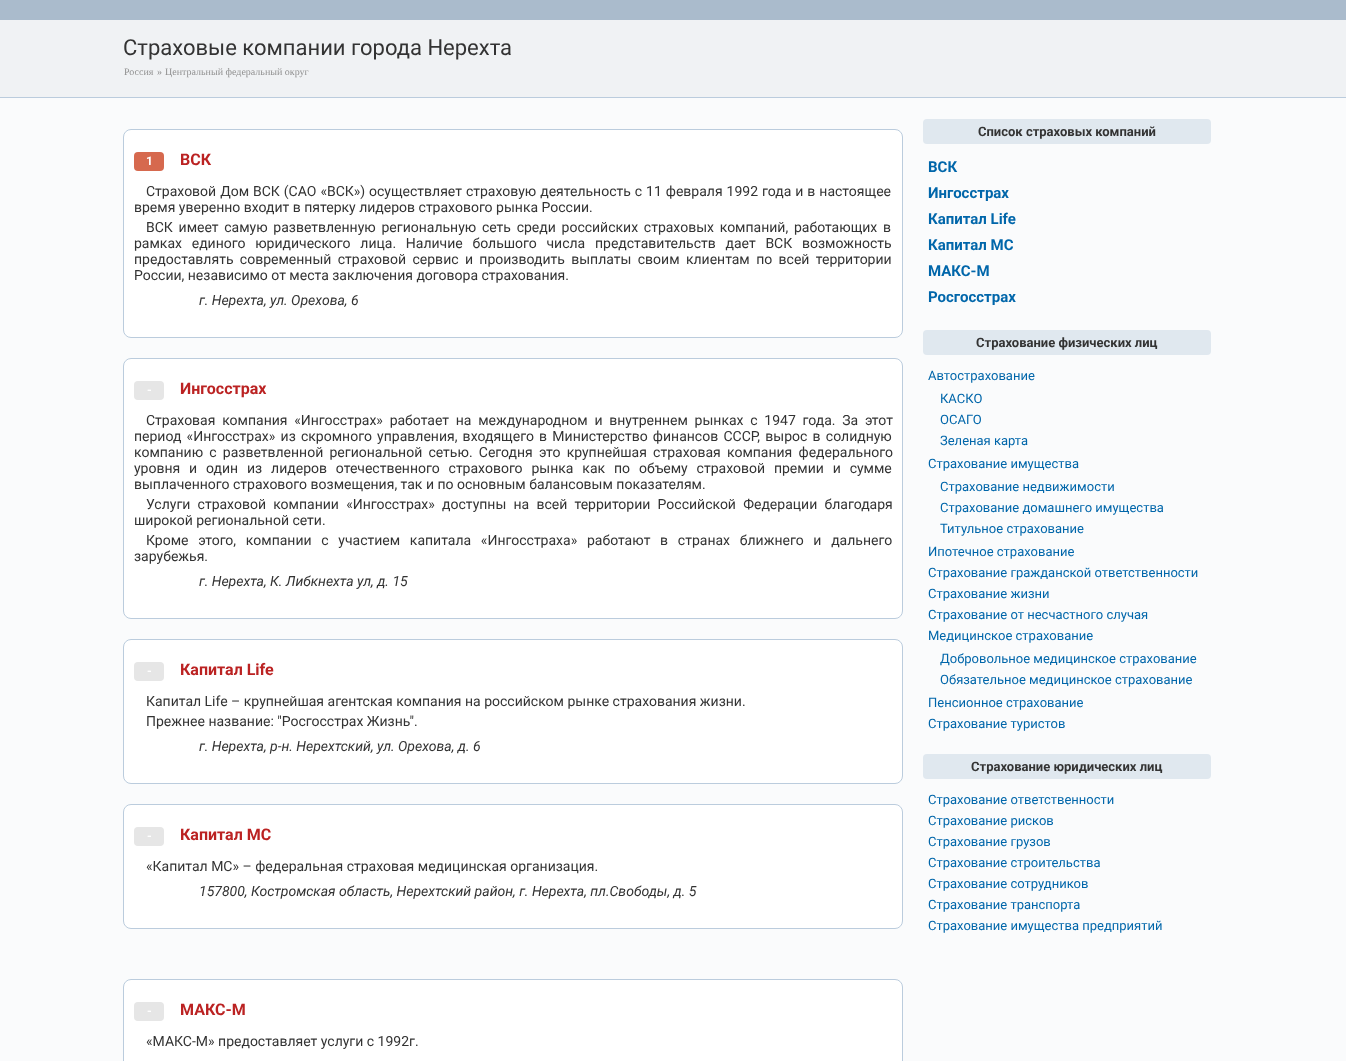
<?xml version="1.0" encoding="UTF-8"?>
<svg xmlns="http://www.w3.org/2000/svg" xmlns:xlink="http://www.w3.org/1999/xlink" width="1346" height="1061">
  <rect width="100%" height="100%" fill="#fafbfc" />
  <rect y="20" width="1346" height="77" fill="#f0f2f4" />
  <rect width="1346" height="20" fill="#aabbcc" />
  <rect y="97" width="1346" height="1" fill="#bbccdd" />
  <rect x="123.5" y="129.5" width="779" height="208" rx="7.5" fill="#ffffff" stroke="#bbccdd" />
  <rect x="134" y="152" width="30" height="19" rx="4" fill="#d6694e" />
  <rect x="123.5" y="358.5" width="779" height="260" rx="7.5" fill="#ffffff" stroke="#bbccdd" />
  <rect x="134" y="381" width="30" height="19" rx="4" fill="#e6e6e6" />
  <rect x="123.5" y="639.5" width="779" height="144" rx="7.5" fill="#ffffff" stroke="#bbccdd" />
  <rect x="134" y="662" width="30" height="19" rx="4" fill="#e6e6e6" />
  <rect x="123.5" y="804.5" width="779" height="124" rx="7.5" fill="#ffffff" stroke="#bbccdd" />
  <rect x="134" y="827" width="30" height="19" rx="4" fill="#e6e6e6" />
  <rect x="123.5" y="979.5" width="779" height="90" rx="7.5" fill="#ffffff" stroke="#bbccdd" />
  <rect x="134" y="1002" width="30" height="19" rx="4" fill="#e6e6e6" />
  <rect x="923" y="119" width="288" height="25" rx="4" fill="#e0e8ef" />
  <rect x="923" y="330" width="288" height="25" rx="4" fill="#e0e8ef" />
  <rect x="923" y="754" width="288" height="25" rx="4" fill="#e0e8ef" />
  <text x="123" y="55" style="font-family: Roboto; font-size: 22px; fill: #333333">Страховые компании города Нерехта</text>
  <text x="124" y="75" style="font-family: Liberation Serif; font-size: 10px; fill: #909090">Россия</text>
  <text x="157" y="75" style="font-family: Liberation Serif; font-size: 10px; fill: #909090">»</text>
  <text x="165" y="75" style="font-family: Liberation Serif; font-size: 10px; fill: #909090">Центральный федеральный округ</text>
  <text x="146" y="165" style="font-family: Roboto; font-size: 12px; font-weight: bold; fill: #ffffff">1</text>
  <text x="180" y="165" style="font-family: Roboto; font-size: 16px; font-weight: bold; fill: #bb2222">ВСК</text>
  <text x="146" y="196" word-spacing="0.5" style="font-family: Roboto; font-size: 14px; fill: #333333">Страховой Дом ВСК (САО «ВСК»)</text>
  <text x="369" y="196" word-spacing="0.5" style="font-family: Roboto; font-size: 14px; fill: #333333">осуществляет страховую деятельность с 11 февраля 1992 года и в настоящее</text>
  <text x="134" y="212" style="font-family: Roboto; font-size: 14px; fill: #333333">время уверенно входит в пятерку лидеров страхового рынка России.</text>
  <text x="146" y="232" word-spacing="2.25" style="font-family: Roboto; font-size: 14px; fill: #333333">ВСК имеет самую разветвленную региональную сеть среди российских страховых компаний, работающих в</text>
  <text x="134" y="248" word-spacing="6.25" style="font-family: Roboto; font-size: 14px; fill: #333333">рамках единого юридического лица. Наличие большого числа представительств дает ВСК возможность</text>
  <text x="134" y="264" word-spacing="2.9" style="font-family: Roboto; font-size: 14px; fill: #333333">предоставлять современный страховой сервис и производить выплаты своим клиентам по всей территории</text>
  <text x="134" y="280" style="font-family: Roboto; font-size: 14px; fill: #333333">России, независимо от места заключения договора страхования.</text>
  <text x="199" y="305" style="font-family: Roboto; font-size: 14px; font-style: italic; fill: #333333">г. Нерехта, ул. Орехова, 6</text>
  <text x="147" y="394" style="font-family: Roboto; font-size: 12px; font-weight: bold; fill: #ffffff">-</text>
  <text x="180" y="394" style="font-family: Roboto; font-size: 16px; font-weight: bold; fill: #bb2222">Ингосстрах</text>
  <text x="146" y="425" word-spacing="3.25" style="font-family: Roboto; font-size: 14px; fill: #333333">Страховая компания «Ингосстрах» работает на международном и внутреннем рынках с 1947 года. За этот</text>
  <text x="134" y="441" word-spacing="1.75" style="font-family: Roboto; font-size: 14px; fill: #333333">период «Ингосстрах» из скромного управления, входящего в Министерство финансов СССР, вырос в солидную</text>
  <text x="134" y="457" word-spacing="2.75" style="font-family: Roboto; font-size: 14px; fill: #333333">компанию с разветвленной региональной сетью. Сегодня это крупнейшая страховая компания федерального</text>
  <text x="134" y="473" word-spacing="5.4" style="font-family: Roboto; font-size: 14px; fill: #333333">уровня и один из лидеров отечественного страхового рынка как по объему страховой премии и сумме</text>
  <text x="134" y="489" style="font-family: Roboto; font-size: 14px; fill: #333333">выплаченного страхового возмещения, так и по основным балансовым показателям.</text>
  <text x="146" y="509" word-spacing="3.75" style="font-family: Roboto; font-size: 14px; fill: #333333">Услуги страховой компании «Ингосстрах» доступны на всей территории Российской Федерации благодаря</text>
  <text x="134" y="525" style="font-family: Roboto; font-size: 14px; fill: #333333">широкой региональной сети.</text>
  <text x="146" y="545" word-spacing="6.25" style="font-family: Roboto; font-size: 14px; fill: #333333">Кроме этого, компании с участием капитала «Ингосстраха» работают в странах ближнего и дальнего</text>
  <text x="134" y="561" style="font-family: Roboto; font-size: 14px; fill: #333333">зарубежья.</text>
  <text x="199" y="586" style="font-family: Roboto; font-size: 14px; font-style: italic; fill: #333333">г. Нерехта, К. Либкнехта ул, д. 15</text>
  <text x="147" y="675" style="font-family: Roboto; font-size: 12px; font-weight: bold; fill: #ffffff">-</text>
  <text x="180" y="675" style="font-family: Roboto; font-size: 16px; font-weight: bold; fill: #bb2222">Капитал Life</text>
  <text x="146" y="706" style="font-family: Roboto; font-size: 14px; fill: #333333">Капитал Life – крупнейшая агентская компания на российском рынке страхования жизни.</text>
  <text x="146" y="726" style="font-family: Roboto; font-size: 14px; fill: #333333">Прежнее название: "Росгосстрах Жизнь".</text>
  <text x="199" y="751" style="font-family: Roboto; font-size: 14px; font-style: italic; fill: #333333">г. Нерехта, р-н. Нерехтский, ул. Орехова, д. 6</text>
  <text x="147" y="840" style="font-family: Roboto; font-size: 12px; font-weight: bold; fill: #ffffff">-</text>
  <text x="180" y="840" style="font-family: Roboto; font-size: 16px; font-weight: bold; fill: #bb2222">Капитал МС</text>
  <text x="146" y="871" style="font-family: Roboto; font-size: 14px; fill: #333333">«Капитал МС» – федеральная страховая медицинская организация.</text>
  <text x="199" y="896" style="font-family: Roboto; font-size: 14px; font-style: italic; fill: #333333">157800, Костромская область, Нерехтский район, г. Нерехта, пл.Свободы, д. 5</text>
  <text x="147" y="1015" style="font-family: Roboto; font-size: 12px; font-weight: bold; fill: #ffffff">-</text>
  <text x="180" y="1015" style="font-family: Roboto; font-size: 16px; font-weight: bold; fill: #bb2222">МАКС-М</text>
  <text x="146" y="1046" style="font-family: Roboto; font-size: 14px; fill: #333333">«МАКС-М» предоставляет услуги с 1992г.</text>
  <text x="978" y="136" style="font-family: Roboto; font-size: 13px; font-weight: bold; fill: #333333">Список страховых компаний</text>
  <text x="928" y="172" style="font-family: Roboto; font-size: 15px; font-weight: bold; fill: #0066aa">ВСК</text>
  <text x="928" y="198" style="font-family: Roboto; font-size: 15px; font-weight: bold; fill: #0066aa">Ингосстрах</text>
  <text x="928" y="224" style="font-family: Roboto; font-size: 15px; font-weight: bold; fill: #0066aa">Капитал Life</text>
  <text x="928" y="250" style="font-family: Roboto; font-size: 15px; font-weight: bold; fill: #0066aa">Капитал МС</text>
  <text x="928" y="276" style="font-family: Roboto; font-size: 15px; font-weight: bold; fill: #0066aa">МАКС-М</text>
  <text x="928" y="302" style="font-family: Roboto; font-size: 15px; font-weight: bold; fill: #0066aa">Росгосстрах</text>
  <text x="976" y="347" style="font-family: Roboto; font-size: 13px; font-weight: bold; fill: #333333">Страхование физических лиц</text>
  <text x="928" y="380" style="font-family: Roboto; font-size: 13px; fill: #0066aa">Автострахование</text>
  <text x="940" y="403" style="font-family: Roboto; font-size: 13px; fill: #0066aa">КАСКО</text>
  <text x="940" y="424" style="font-family: Roboto; font-size: 13px; fill: #0066aa">ОСАГО</text>
  <text x="940" y="445" style="font-family: Roboto; font-size: 13px; fill: #0066aa">Зеленая карта</text>
  <text x="928" y="468" style="font-family: Roboto; font-size: 13px; fill: #0066aa">Страхование имущества</text>
  <text x="940" y="491" style="font-family: Roboto; font-size: 13px; fill: #0066aa">Страхование недвижимости</text>
  <text x="940" y="512" style="font-family: Roboto; font-size: 13px; fill: #0066aa">Страхование домашнего имущества</text>
  <text x="940" y="533" style="font-family: Roboto; font-size: 13px; fill: #0066aa">Титульное страхование</text>
  <text x="928" y="556" style="font-family: Roboto; font-size: 13px; fill: #0066aa">Ипотечное страхование</text>
  <text x="928" y="577" style="font-family: Roboto; font-size: 13px; fill: #0066aa">Страхование гражданской ответственности</text>
  <text x="928" y="598" style="font-family: Roboto; font-size: 13px; fill: #0066aa">Страхование жизни</text>
  <text x="928" y="619" style="font-family: Roboto; font-size: 13px; fill: #0066aa">Страхование от несчастного случая</text>
  <text x="928" y="640" style="font-family: Roboto; font-size: 13px; fill: #0066aa">Медицинское страхование</text>
  <text x="940" y="663" style="font-family: Roboto; font-size: 13px; fill: #0066aa">Добровольное медицинское страхование</text>
  <text x="940" y="684" style="font-family: Roboto; font-size: 13px; fill: #0066aa">Обязательное медицинское страхование</text>
  <text x="928" y="707" style="font-family: Roboto; font-size: 13px; fill: #0066aa">Пенсионное страхование</text>
  <text x="928" y="728" style="font-family: Roboto; font-size: 13px; fill: #0066aa">Страхование туристов</text>
  <text x="971" y="771" style="font-family: Roboto; font-size: 13px; font-weight: bold; fill: #333333">Страхование юридических лиц</text>
  <text x="928" y="804" style="font-family: Roboto; font-size: 13px; fill: #0066aa">Страхование ответственности</text>
  <text x="928" y="825" style="font-family: Roboto; font-size: 13px; fill: #0066aa">Страхование рисков</text>
  <text x="928" y="846" style="font-family: Roboto; font-size: 13px; fill: #0066aa">Страхование грузов</text>
  <text x="928" y="867" style="font-family: Roboto; font-size: 13px; fill: #0066aa">Страхование строительства</text>
  <text x="928" y="888" style="font-family: Roboto; font-size: 13px; fill: #0066aa">Страхование сотрудников</text>
  <text x="928" y="909" style="font-family: Roboto; font-size: 13px; fill: #0066aa">Страхование транспорта</text>
  <text x="928" y="930" style="font-family: Roboto; font-size: 13px; fill: #0066aa">Страхование имущества предприятий</text>
</svg>
